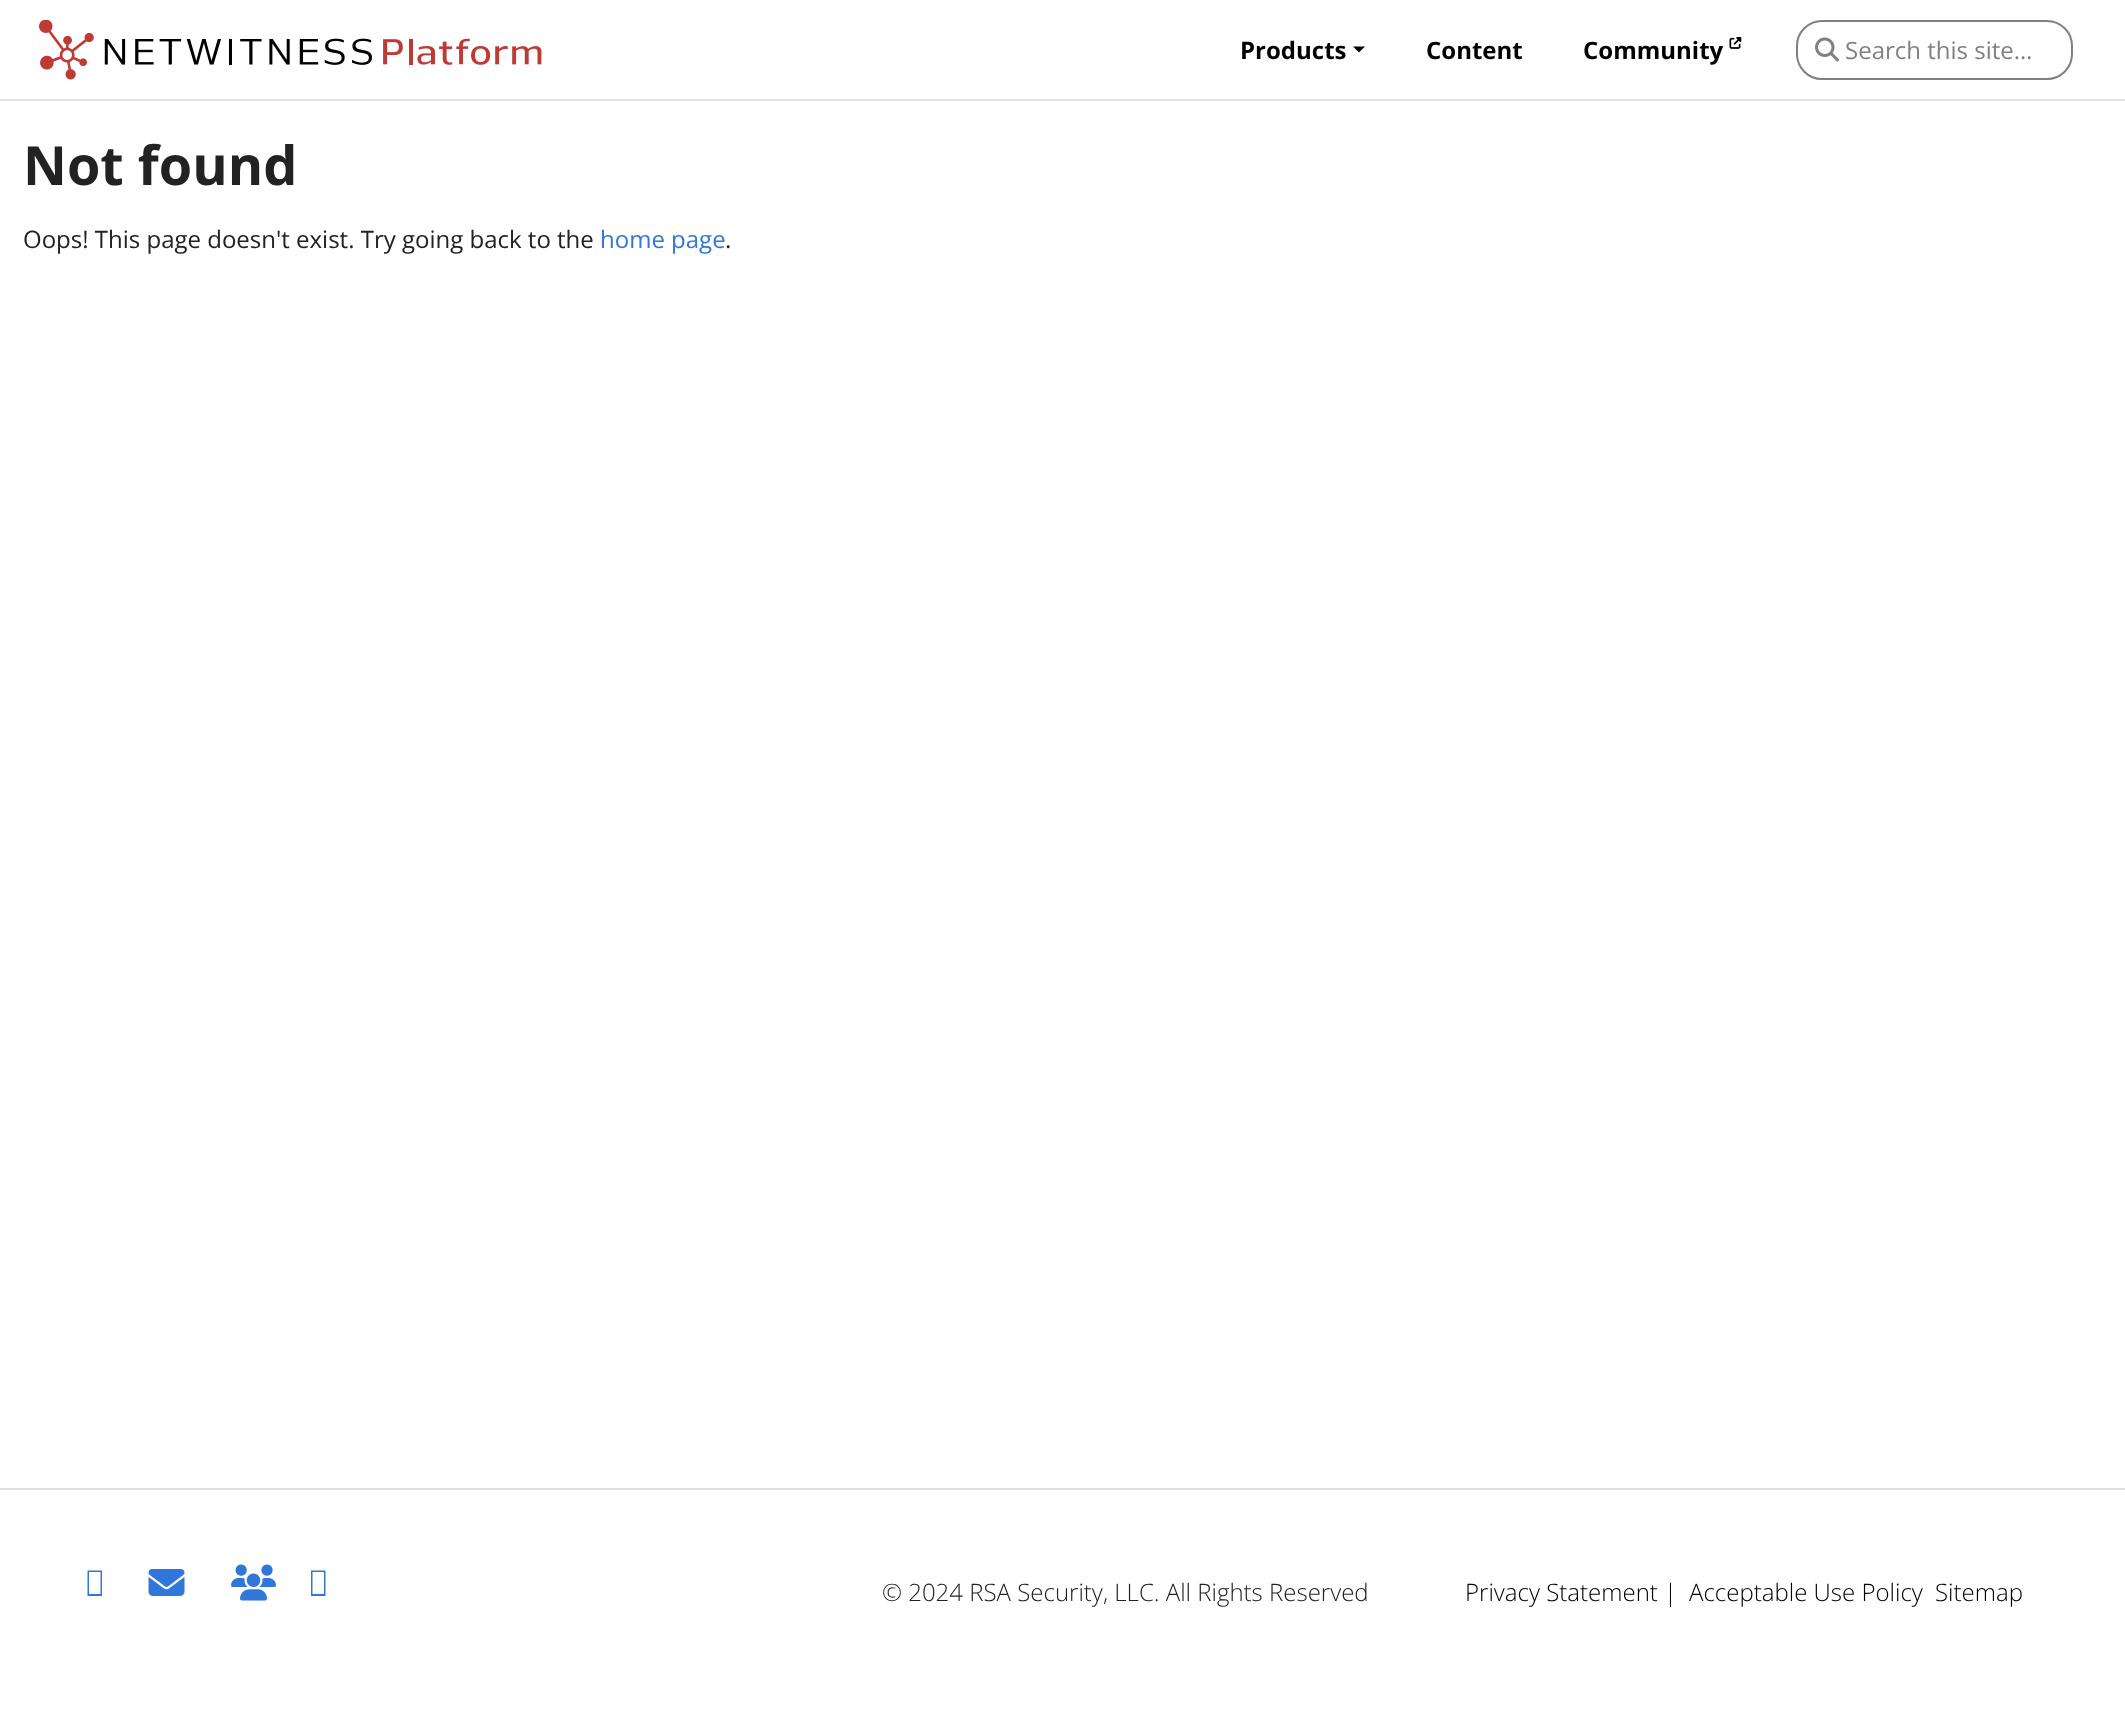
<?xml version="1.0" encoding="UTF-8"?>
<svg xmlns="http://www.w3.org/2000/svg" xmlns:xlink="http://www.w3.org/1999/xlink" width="2125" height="1712">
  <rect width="100%" height="100%" fill="#ffffff" />
  <rect y="99" width="2125" height="2" fill="#dee2e6" />
  <image x="39" y="20" width="503" height="60" xlink:href="image1.png" />
  <path d="M 1353 46.5 h 12 l -6 6 z" fill="#000000" />
  <image x="1729" y="37" width="13" height="12" xlink:href="image2.png" />
  <rect x="1797" y="21" width="275" height="58" rx="25" fill="none" stroke="#808080" stroke-width="2" />
  <image x="1815" y="37" width="24" height="25" xlink:href="image3.png" />
  <rect y="1488" width="2125" height="2" fill="#dee2e6" />
  <path d="M 87.5 1596 v -25.5 h 14.5 v 25.5 z m 1.5 -2 h 11.5 v -22 h -11.5 z" fill="#3176d9" />
  <image x="148" y="1569" width="37" height="27" xlink:href="image4.png" />
  <image x="231" y="1564" width="45" height="37" xlink:href="image5.png" />
  <path d="M 311 1596 v -25.5 h 14.5 v 25.5 z m 1.5 -2 h 11.5 v -22 h -11.5 z" fill="#3176d9" />
  <text x="1240" y="59" style="font-family: Open Sans; font-size: 24px; font-weight: bold; fill: #000000">Products</text>
  <text x="1426" y="59" style="font-family: Open Sans; font-size: 24px; font-weight: bold; fill: #000000">Content</text>
  <text x="1583" y="59" style="font-family: Open Sans; font-size: 24px; font-weight: bold; fill: #000000">Community</text>
  <text x="1845" y="59" style="font-family: Open Sans; font-size: 24px; fill: #808080">Search this site…</text>
  <text x="23" y="185" style="font-family: Open Sans; font-size: 54px; font-weight: bold; fill: #222222">Not found</text>
  <text x="23" y="248" style="font-family: Open Sans; font-size: 24px; fill: #222222">Oops! This page doesn't exist. Try going back to the</text>
  <text x="600" y="248" style="font-family: Open Sans; font-size: 24px; fill: #3176d9">home page</text>
  <text x="725" y="248" style="font-family: Open Sans; font-size: 24px; fill: #222222">.</text>
  <text x="882" y="1601" style="font-family: Open Sans; font-size: 24px; font-weight: 300; fill: #222222">© 2024 RSA Security, LLC. All Rights Reserved</text>
  <text x="1465" y="1601" style="font-family: Open Sans; font-size: 24px; font-weight: 300; fill: #000000">Privacy Statement |</text>
  <text x="1689" y="1601" style="font-family: Open Sans; font-size: 24px; font-weight: 300; fill: #000000">Acceptable Use Policy</text>
  <text x="1935" y="1601" style="font-family: Open Sans; font-size: 24px; font-weight: 300; fill: #000000">Sitemap</text>
</svg>
